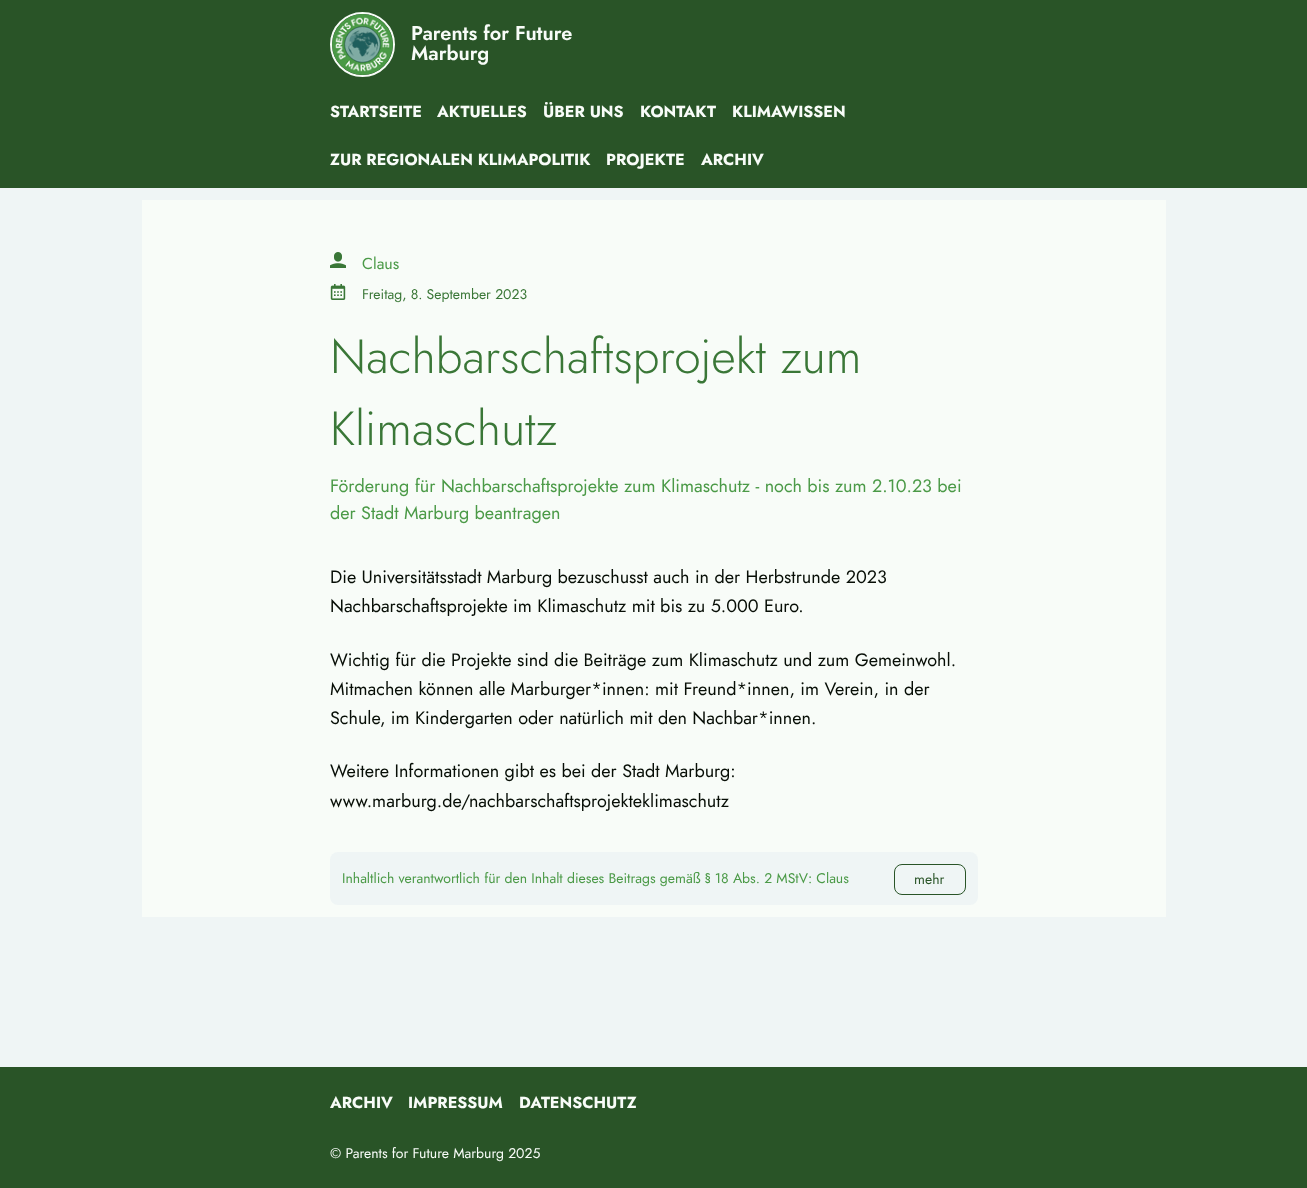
<?xml version="1.0" encoding="UTF-8"?>
<svg xmlns="http://www.w3.org/2000/svg" xmlns:xlink="http://www.w3.org/1999/xlink" width="1307" height="1188">
  <rect width="100%" height="100%" fill="#eff5f5" />
  <rect width="1307" height="188" fill="#295427" />
  <circle cx="362.5" cy="44.5" r="31.5" fill="none" stroke="#f8fcf8" stroke-width="2" />
  <image x="332" y="14" width="61" height="61" xlink:href="image1.png" />
  <rect x="142" y="200" width="1024" height="717" fill="#f8fcf8" />
  <image x="330" y="252" width="16" height="16" xlink:href="image2.png" />
  <image x="330" y="284" width="16" height="16" xlink:href="image3.png" />
  <rect x="330" y="852" width="648" height="53" rx="8" fill="#eff5f5" />
  <rect x="894.5" y="864.5" width="71" height="30" rx="7.5" fill="none" stroke="#295427" />
  <rect y="1067" width="1307" height="121" fill="#295427" />
  <text x="411" y="40" style="font-family: Jost; font-size: 20px; font-weight: 600; fill: #f8fcf8">Parents for Future</text>
  <text x="411" y="60" style="font-family: Jost; font-size: 20px; font-weight: 600; fill: #f8fcf8">Marburg</text>
  <text x="330" y="117" style="font-family: Jost; font-size: 16px; font-weight: bold; fill: #f8fcf8">STARTSEITE</text>
  <text x="437" y="117" style="font-family: Jost; font-size: 16px; font-weight: bold; fill: #f8fcf8">AKTUELLES</text>
  <text x="543" y="117" style="font-family: Jost; font-size: 16px; font-weight: bold; fill: #f8fcf8">ÜBER UNS</text>
  <text x="640" y="117" style="font-family: Jost; font-size: 16px; font-weight: bold; fill: #f8fcf8">KONTAKT</text>
  <text x="732" y="117" style="font-family: Jost; font-size: 16px; font-weight: bold; fill: #f8fcf8">KLIMAWISSEN</text>
  <text x="330" y="165" style="font-family: Jost; font-size: 16px; font-weight: bold; fill: #f8fcf8">ZUR REGIONALEN KLIMAPOLITIK</text>
  <text x="606" y="165" style="font-family: Jost; font-size: 16px; font-weight: bold; fill: #f8fcf8">PROJEKTE</text>
  <text x="701" y="165" style="font-family: Jost; font-size: 16px; font-weight: bold; fill: #f8fcf8">ARCHIV</text>
  <text x="362" y="269" style="font-family: Jost; font-size: 16px; fill: #4b9a47">Claus</text>
  <text x="362" y="299" style="font-family: Jost; font-size: 14px; fill: #3a7737">Freitag, 8. September 2023</text>
  <text x="330" y="373" style="font-family: Jost; font-size: 48px; font-weight: 300; fill: #3a7737">Nachbarschaftsprojekt zum</text>
  <text x="330" y="445" style="font-family: Jost; font-size: 48px; font-weight: 300; fill: #3a7737">Klimaschutz</text>
  <text x="330" y="492" style="font-family: Jost; font-size: 18px; fill: #4b9a47">Förderung für Nachbarschaftsprojekte zum Klimaschutz - noch bis zum 2.10.23 bei</text>
  <text x="330" y="519" style="font-family: Jost; font-size: 18px; fill: #4b9a47">der Stadt Marburg beantragen</text>
  <text x="330" y="583" style="font-family: Jost; font-size: 18px; fill: #070e06">Die Universitätsstadt Marburg bezuschusst auch in der Herbstrunde 2023</text>
  <text x="330" y="612" style="font-family: Jost; font-size: 18px; fill: #070e06">Nachbarschaftsprojekte im Klimaschutz mit bis zu 5.000 Euro.</text>
  <text x="330" y="666" style="font-family: Jost; font-size: 18px; fill: #070e06">Wichtig für die Projekte sind die Beiträge zum Klimaschutz und zum Gemeinwohl.</text>
  <text x="330" y="695" style="font-family: Jost; font-size: 18px; fill: #070e06">Mitmachen können alle Marburger*innen: mit Freund*innen, im Verein, in der</text>
  <text x="330" y="724" style="font-family: Jost; font-size: 18px; fill: #070e06">Schule, im Kindergarten oder natürlich mit den Nachbar*innen.</text>
  <text x="330" y="777" style="font-family: Jost; font-size: 18px; fill: #070e06">Weitere Informationen gibt es bei der Stadt Marburg:</text>
  <text x="330" y="807" style="font-family: Jost; font-size: 18px; fill: #070e06">www.marburg.de/nachbarschaftsprojekteklimaschutz</text>
  <text x="342" y="883" style="font-family: Jost; font-size: 14px; fill: #4b9a47">Inhaltlich verantwortlich für den Inhalt dieses Beitrags gemäß § 18 Abs. 2 MStV: Claus</text>
  <text x="914" y="884" style="font-family: Jost; font-size: 14px; fill: #295427">mehr</text>
  <text x="330" y="1108" style="font-family: Jost; font-size: 16px; font-weight: bold; fill: #f8fcf8">ARCHIV</text>
  <text x="408" y="1108" style="font-family: Jost; font-size: 16px; font-weight: bold; fill: #f8fcf8">IMPRESSUM</text>
  <text x="519" y="1108" style="font-family: Jost; font-size: 16px; font-weight: bold; fill: #f8fcf8">DATENSCHUTZ</text>
  <text x="330" y="1158" style="font-family: Jost; font-size: 14px; fill: #f8fcf8">© Parents for Future Marburg 2025</text>
</svg>
